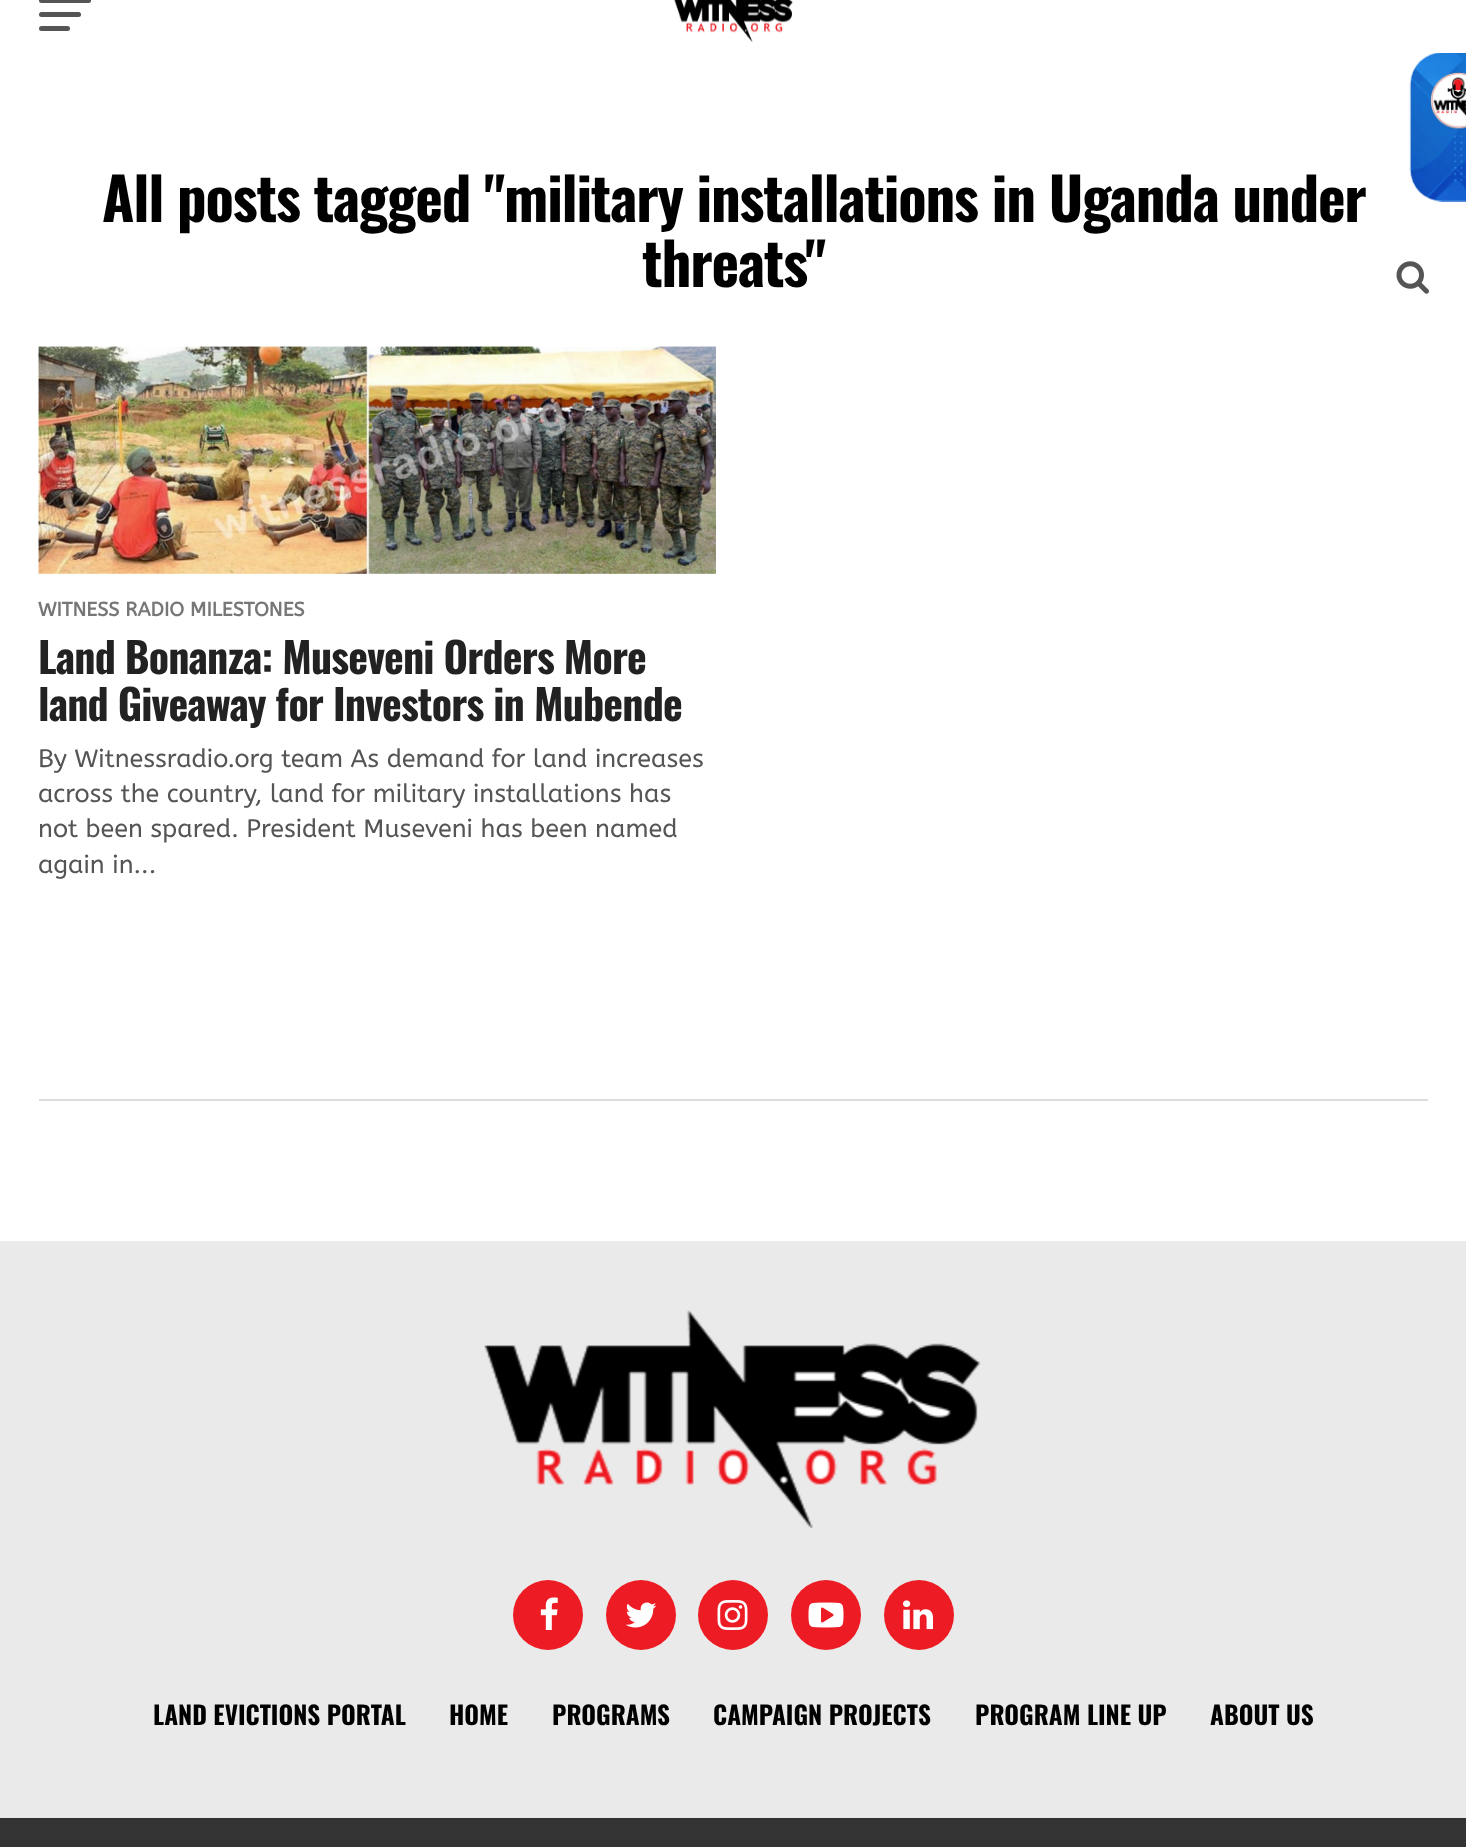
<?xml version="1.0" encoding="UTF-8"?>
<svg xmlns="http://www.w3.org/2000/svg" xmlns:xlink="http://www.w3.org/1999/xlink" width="1466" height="1847">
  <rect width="100%" height="100%" fill="#ffffff" />
  <rect x="39" y="-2" width="52" height="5" rx="2.5" fill="#555555" />
  <rect x="39" y="12" width="42" height="5" rx="2.5" fill="#555555" />
  <rect x="39" y="26" width="31" height="5" rx="2.5" fill="#555555" />
  <image x="674" y="0" width="119" height="42" xlink:href="image1.png" />
  <image x="1409" y="53" width="57" height="149" xlink:href="image2.png" />
  <image x="1430" y="72" width="36" height="58" xlink:href="image3.png" />
  <image x="1396" y="261" width="33" height="33" xlink:href="image4.png" />
  <image x="38" y="346" width="678" height="228" xlink:href="image5.png" />
  <rect x="39" y="1099" width="1389" height="2" fill="#dddddd" />
  <rect y="1241" width="1466" height="577" fill="#eaeaea" />
  <image x="484" y="1310" width="497" height="218" xlink:href="image6.png" />
  <circle cx="548" cy="1615" r="35" fill="#ed1c24" />
  <image x="540" y="1597" width="18" height="33" xlink:href="image7.png" />
  <circle cx="641" cy="1615" r="35" fill="#ed1c24" />
  <image x="625" y="1602" width="32" height="26" xlink:href="image8.png" />
  <circle cx="733" cy="1615" r="35" fill="#ed1c24" />
  <image x="717" y="1600" width="31" height="30" xlink:href="image9.png" />
  <circle cx="826" cy="1615" r="35" fill="#ed1c24" />
  <image x="808" y="1602" width="36" height="26" xlink:href="image10.png" />
  <circle cx="919" cy="1615" r="35" fill="#ed1c24" />
  <image x="903" y="1600" width="30" height="30" xlink:href="image11.png" />
  <rect y="1818" width="1466" height="29" fill="#333333" />
  <text x="102" y="222" style="font-family: Oswald; font-size: 58.8px; font-weight: bold; letter-spacing: -1.18px; fill: #000000">All posts tagged "military installations in Uganda under</text>
  <text x="642" y="287" style="font-family: Oswald; font-size: 58.8px; font-weight: bold; letter-spacing: -1.18px; fill: #000000">threats"</text>
  <text x="38" y="616" style="font-family: ABeeZee; font-size: 19.6px; font-weight: bold; fill: #777777">WITNESS RADIO MILESTONES</text>
  <text x="38" y="674" style="font-family: Oswald; font-size: 42px; font-weight: bold; letter-spacing: -0.85px; fill: #222222">Land Bonanza: Museveni Orders More</text>
  <text x="38" y="721" style="font-family: Oswald; font-size: 42px; font-weight: bold; letter-spacing: -0.85px; fill: #222222">land Giveaway for Investors in Mubende</text>
  <text x="38" y="767" style="font-family: ABeeZee; font-size: 25.2px; fill: #555555">By Witnessradio.org team As demand for land increases</text>
  <text x="38" y="802" style="font-family: ABeeZee; font-size: 25.2px; fill: #555555">across the country, land for military installations has</text>
  <text x="38" y="837" style="font-family: ABeeZee; font-size: 25.2px; fill: #555555">not been spared. President Museveni has been named</text>
  <text x="38" y="873" style="font-family: ABeeZee; font-size: 25.2px; fill: #555555">again in...</text>
  <text x="153" y="1725" style="font-family: Oswald; font-size: 25.2px; font-weight: bold; fill: #000000">LAND EVICTIONS PORTAL</text>
  <text x="449" y="1725" style="font-family: Oswald; font-size: 25.2px; font-weight: bold; fill: #000000">HOME</text>
  <text x="552" y="1725" style="font-family: Oswald; font-size: 25.2px; font-weight: bold; fill: #000000">PROGRAMS</text>
  <text x="713" y="1725" style="font-family: Oswald; font-size: 25.2px; font-weight: bold; fill: #000000">CAMPAIGN PROJECTS</text>
  <text x="975" y="1725" style="font-family: Oswald; font-size: 25.2px; font-weight: bold; fill: #000000">PROGRAM LINE UP</text>
  <text x="1210" y="1725" style="font-family: Oswald; font-size: 25.2px; font-weight: bold; fill: #000000">ABOUT US</text>
</svg>
